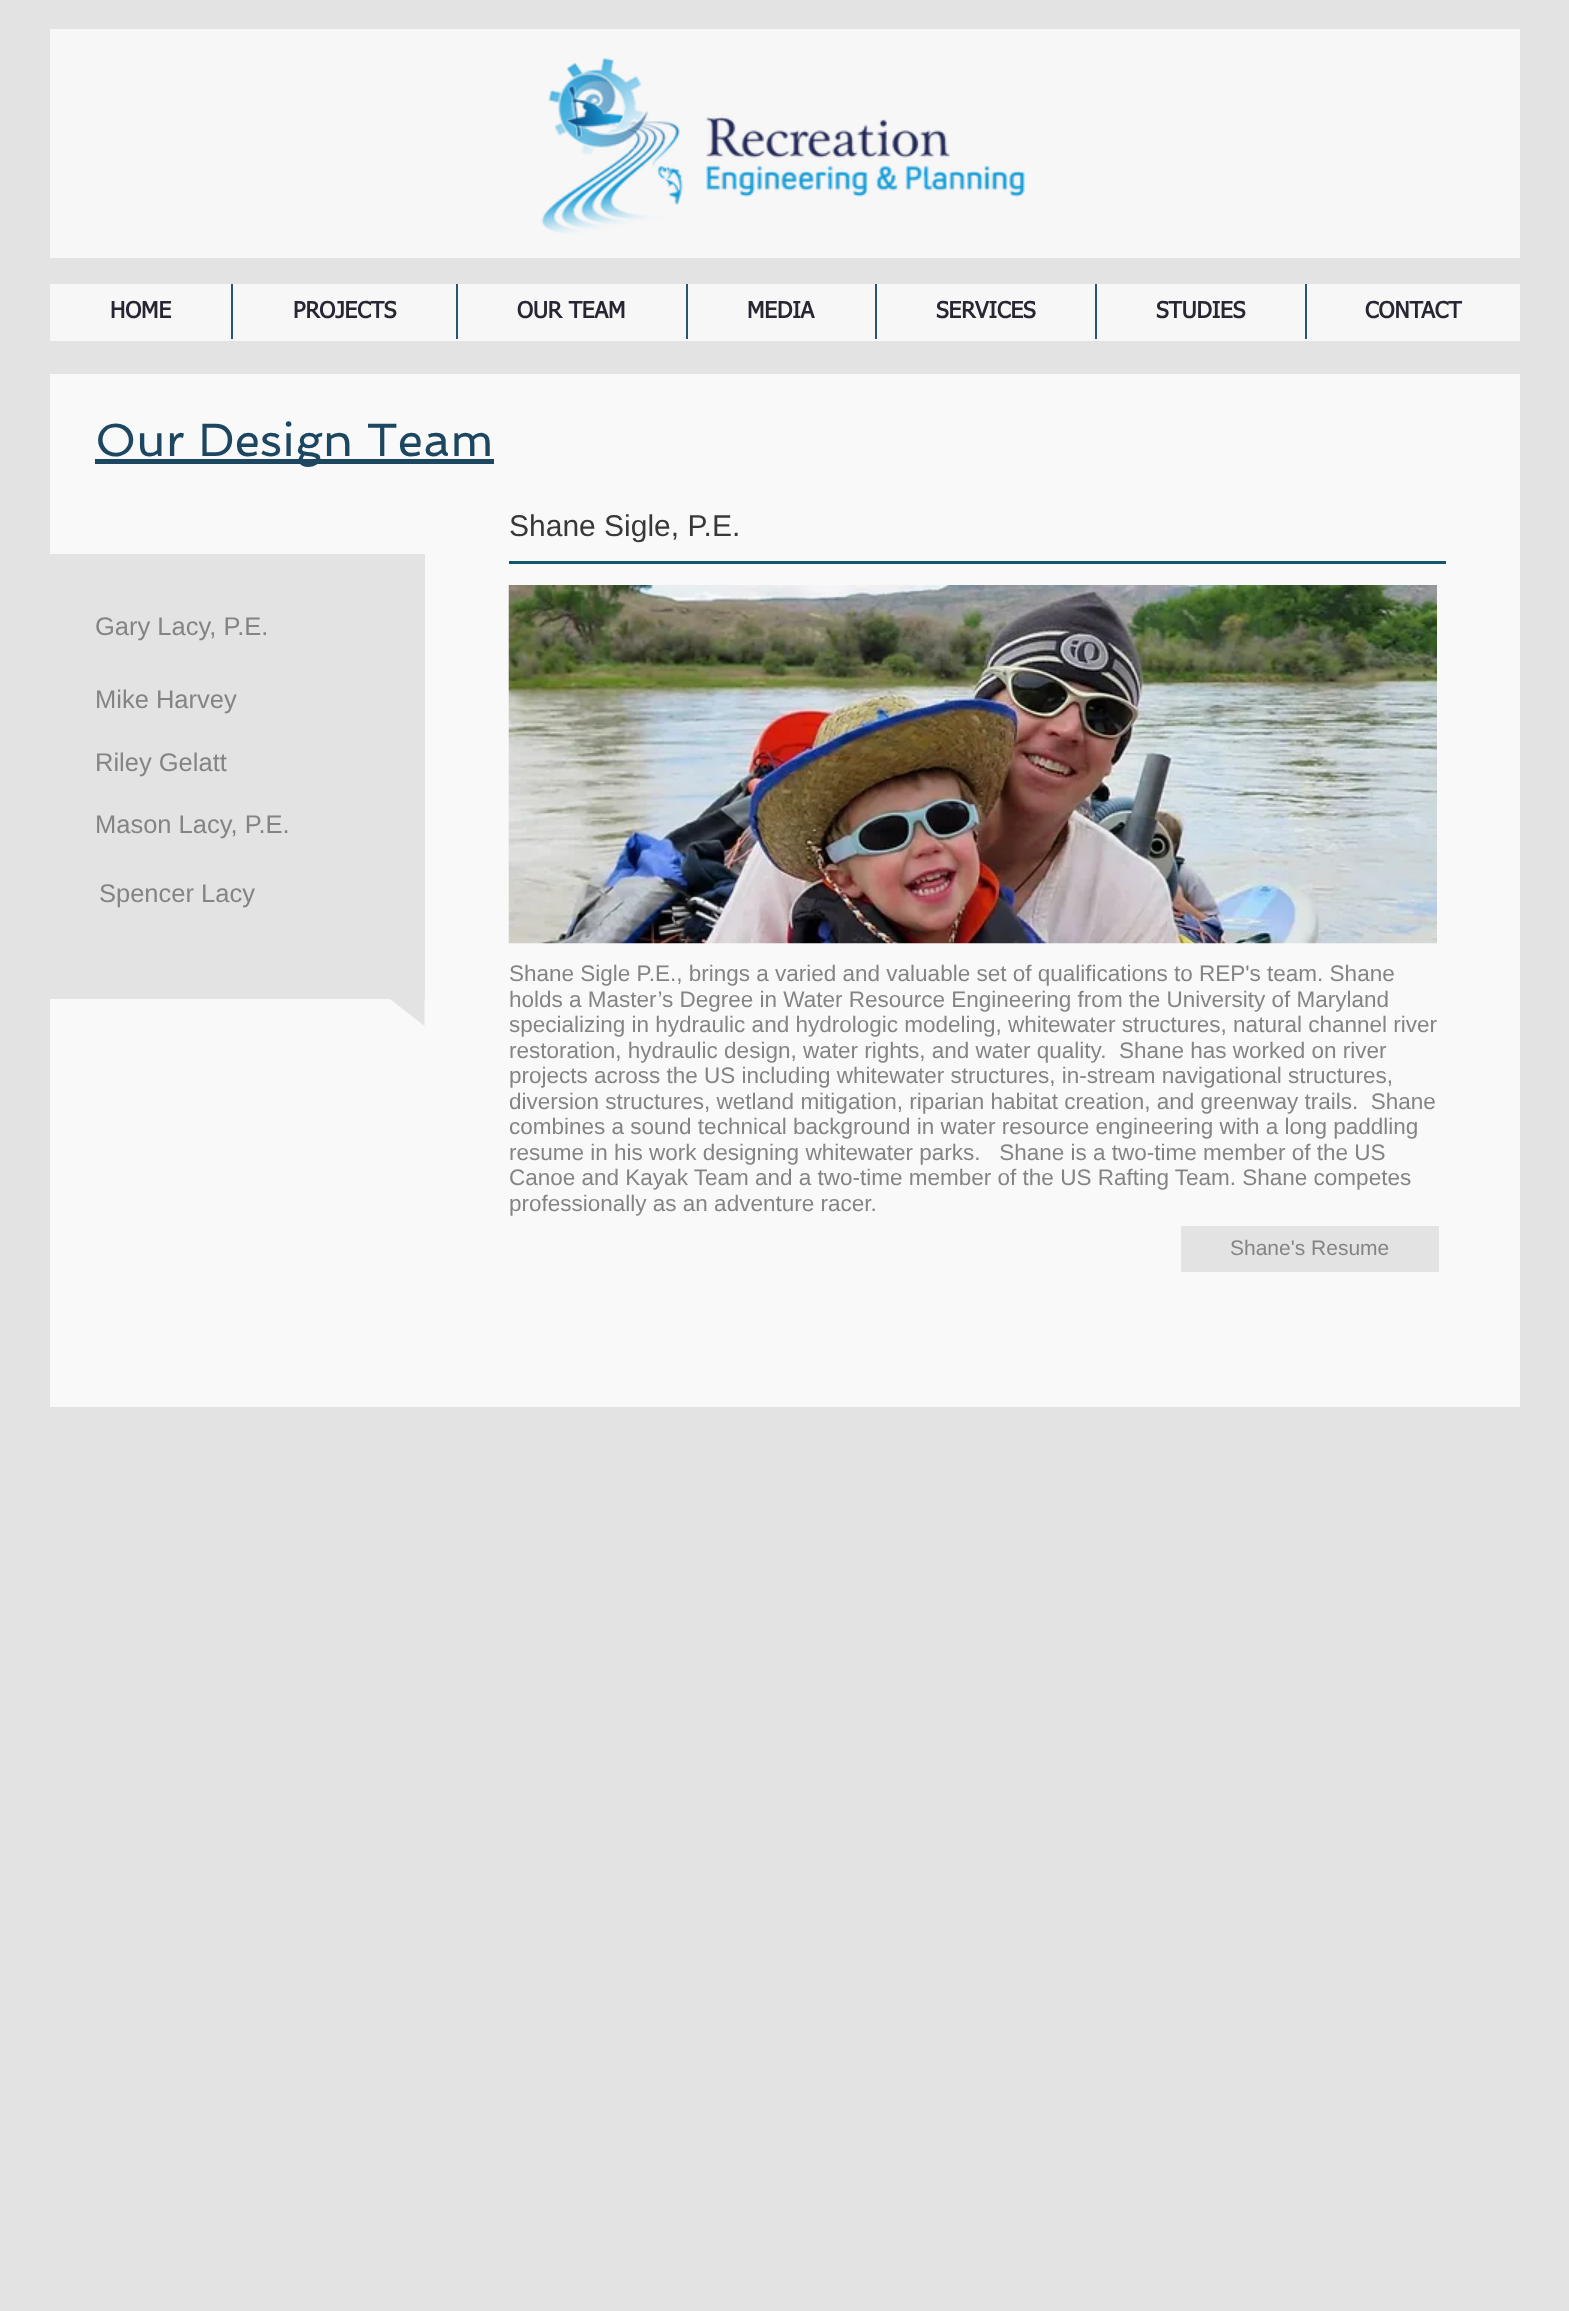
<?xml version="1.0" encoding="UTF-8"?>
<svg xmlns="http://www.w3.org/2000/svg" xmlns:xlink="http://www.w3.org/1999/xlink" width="1569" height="2311">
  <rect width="100%" height="100%" fill="#e3e3e3" />
  <rect x="50" y="29" width="1470" height="229" fill="#f7f7f7" />
  <image x="541" y="58" width="484" height="176" xlink:href="image1.png" />
  <rect x="50" y="284" width="1470" height="57" fill="#f7f7f7" />
  <rect x="231" y="284" width="2" height="55" fill="#2a5570" />
  <rect x="456" y="284" width="2" height="55" fill="#2a5570" />
  <rect x="686" y="284" width="2" height="55" fill="#2a5570" />
  <rect x="875" y="284" width="2" height="55" fill="#2a5570" />
  <rect x="1095" y="284" width="2" height="55" fill="#2a5570" />
  <rect x="1305" y="284" width="2" height="55" fill="#2a5570" />
  <rect x="50" y="374" width="1470" height="1033" fill="#f9f9f9" />
  <rect x="95" y="459" width="399" height="5" fill="#1d4761" />
  <rect x="509" y="561" width="937" height="3" fill="#12566f" />
  <rect x="50" y="554" width="375" height="445" fill="#e3e3e3" />
  <path d="M 390 999 h 34.5 v 27 z" fill="#e3e3e3" />
  <image x="508" y="585" width="929" height="359" xlink:href="image2.png" />
  <rect x="1181" y="1226" width="258" height="46" fill="#e3e3e3" />
  <text x="110" y="318" style="font-family: tahoma; font-size: 22.5px; font-weight: bold; fill: #272633">HOME</text>
  <text x="293" y="318" style="font-family: tahoma; font-size: 22.5px; font-weight: bold; fill: #272633">PROJECTS</text>
  <text x="517" y="318" style="font-family: tahoma; font-size: 22.5px; font-weight: bold; fill: #272633">OUR TEAM</text>
  <text x="747" y="318" style="font-family: tahoma; font-size: 22.5px; font-weight: bold; fill: #272633">MEDIA</text>
  <text x="936" y="318" style="font-family: tahoma; font-size: 22.5px; font-weight: bold; fill: #272633">SERVICES</text>
  <text x="1156" y="318" style="font-family: tahoma; font-size: 22.5px; font-weight: bold; fill: #272633">STUDIES</text>
  <text x="1365" y="318" style="font-family: tahoma; font-size: 22.5px; font-weight: bold; fill: #272633">CONTACT</text>
  <text x="95" y="456" style="font-family: Spinnaker; font-size: 46.5px; fill: #1d4761">Our Design Team</text>
  <text x="509" y="536" style="font-family: Liberation Sans; font-size: 30px; fill: #393838">Shane Sigle, P.E.</text>
  <text x="95" y="635" style="font-family: Liberation Sans; font-size: 25.5px; fill: #868383">Gary Lacy, P.E.</text>
  <text x="95" y="708" style="font-family: Liberation Sans; font-size: 25.5px; fill: #868383">Mike Harvey</text>
  <text x="95" y="771" style="font-family: Liberation Sans; font-size: 25.5px; fill: #868383">Riley Gelatt</text>
  <text x="95" y="833" style="font-family: Liberation Sans; font-size: 25.5px; fill: #868383">Mason Lacy, P.E.</text>
  <text x="99" y="902" style="font-family: Liberation Sans; font-size: 25.5px; fill: #868383">Spencer Lacy</text>
  <text x="509" y="981" style="font-family: Liberation Sans; font-size: 22.5px; fill: #868383">Shane Sigle P.E., brings a varied and valuable set of qualifications to REP's team. Shane</text>
  <text x="509" y="1007" style="font-family: Liberation Sans; font-size: 22.5px; fill: #868383">holds a Master’s Degree in Water Resource Engineering from the University of Maryland</text>
  <text x="509" y="1032" style="font-family: Liberation Sans; font-size: 22.5px; fill: #868383">specializing in hydraulic and hydrologic modeling, whitewater structures, natural channel river</text>
  <text x="509" y="1058" style="font-family: Liberation Sans; font-size: 22.5px; fill: #868383" xml:space="preserve">restoration, hydraulic design, water rights, and water quality.  Shane has worked on river</text>
  <text x="509" y="1083" style="font-family: Liberation Sans; font-size: 22.5px; fill: #868383">projects across the US including whitewater structures, in-stream navigational structures,</text>
  <text x="509" y="1109" style="font-family: Liberation Sans; font-size: 22.5px; fill: #868383" xml:space="preserve">diversion structures, wetland mitigation, riparian habitat creation, and greenway trails.  Shane</text>
  <text x="509" y="1134" style="font-family: Liberation Sans; font-size: 22.5px; fill: #868383">combines a sound technical background in water resource engineering with a long paddling</text>
  <text x="509" y="1160" style="font-family: Liberation Sans; font-size: 22.5px; fill: #868383" xml:space="preserve">resume in his work designing whitewater parks.   Shane is a two-time member of the US</text>
  <text x="509" y="1185" style="font-family: Liberation Sans; font-size: 22.5px; fill: #868383">Canoe and Kayak Team and a two-time member of the US Rafting Team. Shane competes</text>
  <text x="509" y="1211" style="font-family: Liberation Sans; font-size: 22.5px; fill: #868383">professionally as an adventure racer.</text>
  <text x="1230" y="1255" style="font-family: Liberation Sans; font-size: 21px; fill: #868383">Shane's Resume</text>
</svg>
